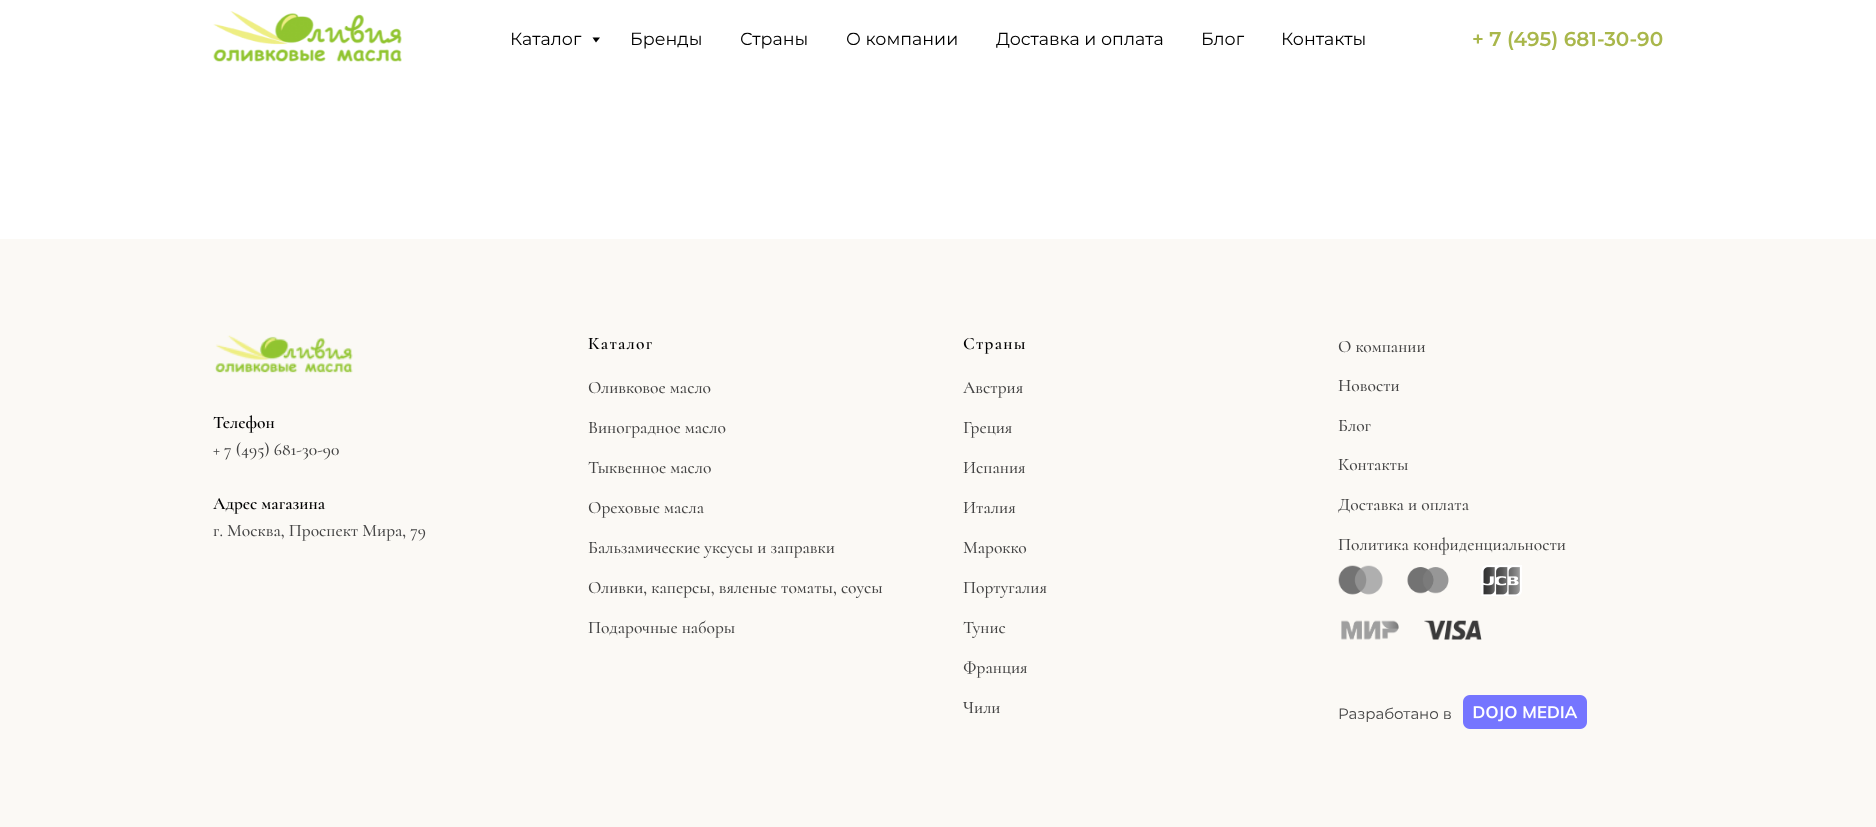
<?xml version="1.0" encoding="UTF-8"?>
<svg xmlns="http://www.w3.org/2000/svg" xmlns:xlink="http://www.w3.org/1999/xlink" width="1876" height="827">
  <rect width="100%" height="100%" fill="#ffffff" />
  <image x="213" y="11" width="189" height="51" xlink:href="image1.png" />
  <path d="M 592.5 37.5 h 7.5 l -4 5 z" fill="#000000" />
  <rect y="239" width="1876" height="588" fill="#fbf9f5" />
  <image x="215" y="335" width="138" height="38" xlink:href="image2.png" />
  <image x="1338" y="565" width="45" height="30" xlink:href="image3.png" />
  <image x="1407" y="567" width="42" height="27" xlink:href="image4.png" />
  <image x="1481" y="565" width="41" height="31" xlink:href="image5.png" />
  <image x="1341" y="620" width="58" height="20" xlink:href="image6.png" />
  <image x="1424" y="620" width="58" height="20" xlink:href="image7.png" />
  <image x="1463" y="695" width="124" height="34" xlink:href="image8.png" />
  <text x="510" y="45" style="font-family: Montserrat; font-size: 17.5px; fill: #000000">Каталог</text>
  <text x="630" y="45" style="font-family: Montserrat; font-size: 17.5px; fill: #000000">Бренды</text>
  <text x="740" y="45" style="font-family: Montserrat; font-size: 17.5px; fill: #000000">Страны</text>
  <text x="846" y="45" style="font-family: Montserrat; font-size: 17.5px; fill: #000000">О компании</text>
  <text x="996" y="45" style="font-family: Montserrat; font-size: 17.5px; fill: #000000">Доставка и оплата</text>
  <text x="1201" y="45" style="font-family: Montserrat; font-size: 17.5px; fill: #000000">Блог</text>
  <text x="1281" y="45" style="font-family: Montserrat; font-size: 17.5px; fill: #000000">Контакты</text>
  <text x="1472" y="46" style="font-family: Montserrat; font-size: 20px; font-weight: 600; fill: #a9b74b">+ 7 (495) 681-30-90</text>
  <text x="213" y="428" style="font-family: Cormorant; font-size: 17.5px; font-weight: 600; fill: #000000">Телефон</text>
  <text x="213" y="455" style="font-family: Cormorant; font-size: 17.5px; font-weight: 500; fill: #444444">+ 7 (495) 681-30-90</text>
  <text x="213" y="509" style="font-family: Cormorant; font-size: 17.5px; font-weight: 600; fill: #000000">Адрес магазина</text>
  <text x="213" y="536" style="font-family: Cormorant; font-size: 17.5px; font-weight: 500; fill: #444444">г. Москва, Проспект Мира, 79</text>
  <text x="588" y="349" style="font-family: Cormorant; font-size: 17.5px; font-weight: 600; letter-spacing: 1.25px; fill: #000000">Каталог</text>
  <text x="588" y="393" style="font-family: Cormorant; font-size: 17.5px; font-weight: 500; fill: #444444">Оливковое масло</text>
  <text x="588" y="433" style="font-family: Cormorant; font-size: 17.5px; font-weight: 500; fill: #444444">Виноградное масло</text>
  <text x="588" y="473" style="font-family: Cormorant; font-size: 17.5px; font-weight: 500; fill: #444444">Тыквенное масло</text>
  <text x="588" y="513" style="font-family: Cormorant; font-size: 17.5px; font-weight: 500; fill: #444444">Ореховые масла</text>
  <text x="588" y="553" style="font-family: Cormorant; font-size: 17.5px; font-weight: 500; fill: #444444">Бальзамические уксусы и заправки</text>
  <text x="588" y="593" style="font-family: Cormorant; font-size: 17.5px; font-weight: 500; fill: #444444">Оливки, каперсы, вяленые томаты, соусы</text>
  <text x="588" y="633" style="font-family: Cormorant; font-size: 17.5px; font-weight: 500; fill: #444444">Подарочные наборы</text>
  <text x="963" y="349" style="font-family: Cormorant; font-size: 17.5px; font-weight: 600; letter-spacing: 1.25px; fill: #000000">Страны</text>
  <text x="963" y="393" style="font-family: Cormorant; font-size: 17.5px; font-weight: 500; fill: #444444">Австрия</text>
  <text x="963" y="433" style="font-family: Cormorant; font-size: 17.5px; font-weight: 500; fill: #444444">Греция</text>
  <text x="963" y="473" style="font-family: Cormorant; font-size: 17.5px; font-weight: 500; fill: #444444">Испания</text>
  <text x="963" y="513" style="font-family: Cormorant; font-size: 17.5px; font-weight: 500; fill: #444444">Италия</text>
  <text x="963" y="553" style="font-family: Cormorant; font-size: 17.5px; font-weight: 500; fill: #444444">Марокко</text>
  <text x="963" y="593" style="font-family: Cormorant; font-size: 17.5px; font-weight: 500; fill: #444444">Португалия</text>
  <text x="963" y="633" style="font-family: Cormorant; font-size: 17.5px; font-weight: 500; fill: #444444">Тунис</text>
  <text x="963" y="673" style="font-family: Cormorant; font-size: 17.5px; font-weight: 500; fill: #444444">Франция</text>
  <text x="963" y="713" style="font-family: Cormorant; font-size: 17.5px; font-weight: 500; fill: #444444">Чили</text>
  <text x="1338" y="352" style="font-family: Cormorant; font-size: 17.5px; font-weight: 500; fill: #444444">О компании</text>
  <text x="1338" y="391" style="font-family: Cormorant; font-size: 17.5px; font-weight: 500; fill: #444444">Новости</text>
  <text x="1338" y="431" style="font-family: Cormorant; font-size: 17.5px; font-weight: 500; fill: #444444">Блог</text>
  <text x="1338" y="470" style="font-family: Cormorant; font-size: 17.5px; font-weight: 500; fill: #444444">Контакты</text>
  <text x="1338" y="510" style="font-family: Cormorant; font-size: 17.5px; font-weight: 500; fill: #444444">Доставка и оплата</text>
  <text x="1338" y="550" style="font-family: Cormorant; font-size: 17.5px; font-weight: 500; fill: #444444">Политика конфиденциальности</text>
  <text x="1338" y="719" style="font-family: Montserrat; font-size: 15px; fill: #444444">Разработано в</text>
</svg>
